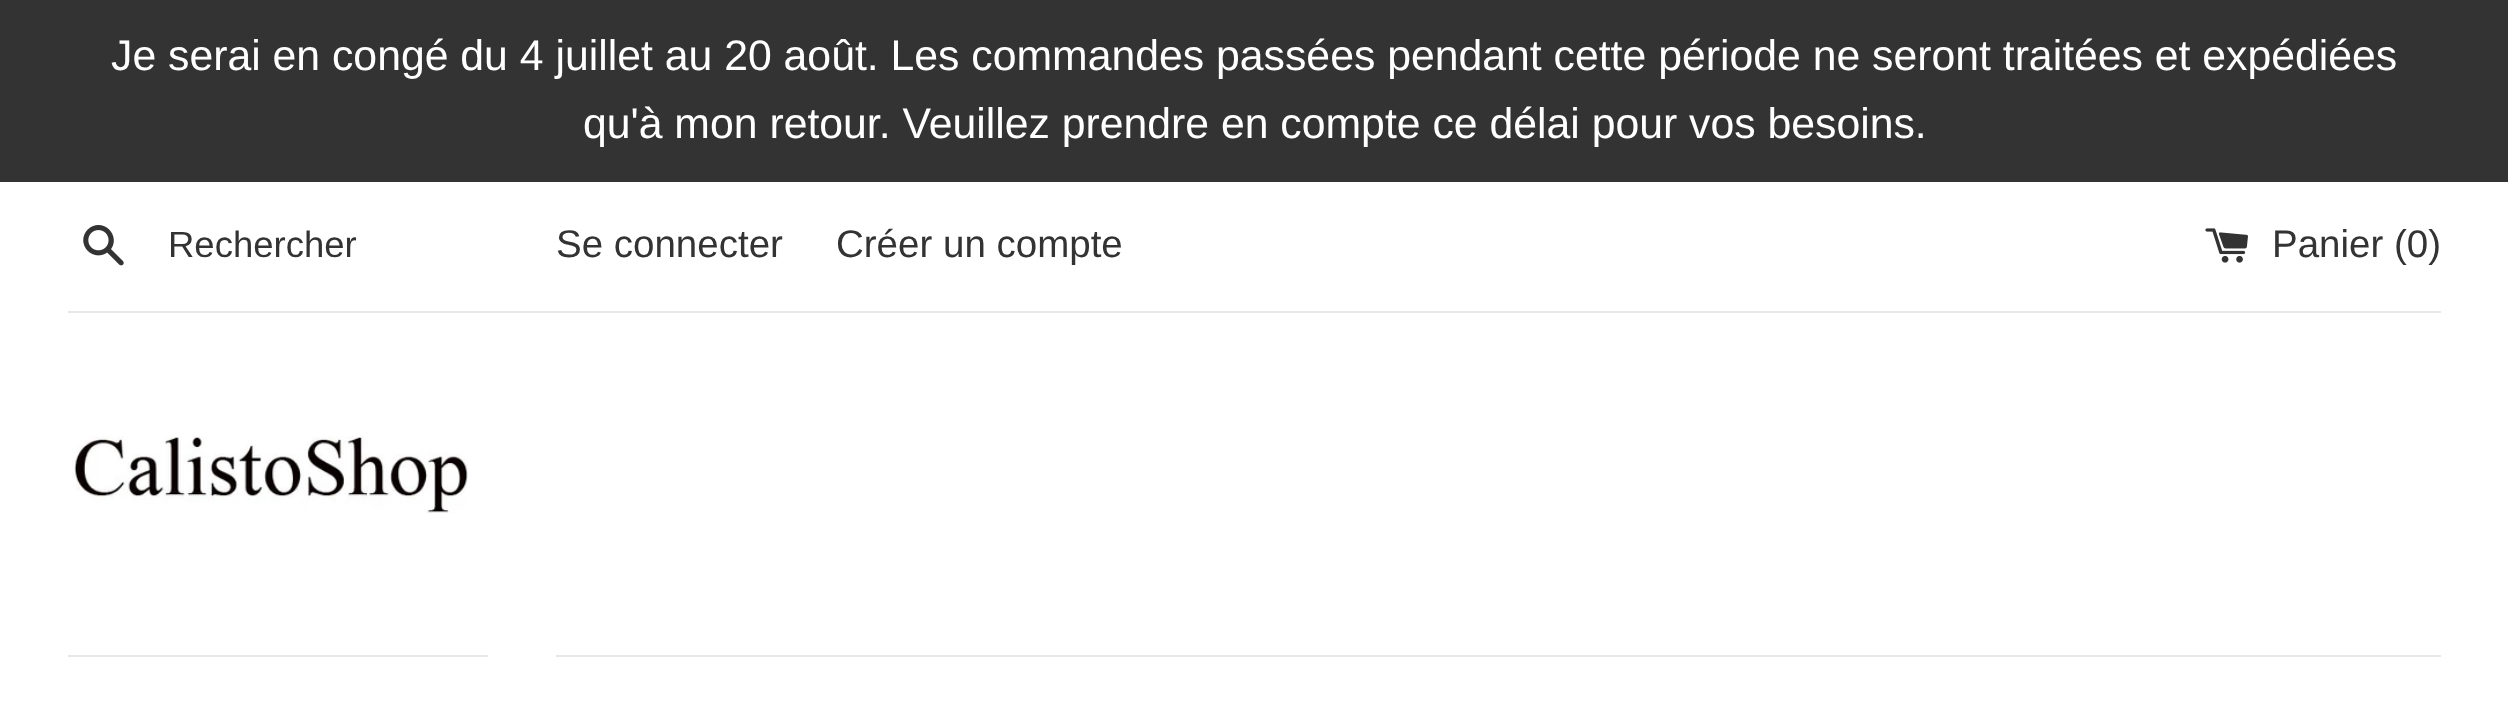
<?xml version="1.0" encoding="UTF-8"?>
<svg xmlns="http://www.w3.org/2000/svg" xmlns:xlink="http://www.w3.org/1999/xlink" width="2508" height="727">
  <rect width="100%" height="100%" fill="#ffffff" />
  <rect width="2508" height="182" fill="#333333" />
  <image x="83" y="225" width="41" height="41" xlink:href="image1.png" />
  <image x="2205" y="228" width="43" height="35" xlink:href="image2.png" />
  <rect x="68" y="311" width="2373" height="2" fill="#e8e8e8" />
  <image x="72" y="436" width="396" height="77" xlink:href="image3.png" />
  <rect x="68" y="655" width="420" height="2" fill="#e8e8e8" />
  <rect x="556" y="655" width="1885" height="2" fill="#e8e8e8" />
  <text x="111" y="70" style="font-family: Liberation Sans; font-size: 42.75px; fill: #ffffff">Je serai en congé du 4 juillet au 20 août. Les commandes passées pendant cette période ne seront traitées et expédiées</text>
  <text x="583" y="138" style="font-family: Liberation Sans; font-size: 42.75px; fill: #ffffff">qu'à mon retour. Veuillez prendre en compte ce délai pour vos besoins.</text>
  <text x="168" y="257" style="font-family: Liberation Sans; font-size: 36.5px; fill: #333333">Rechercher</text>
  <text x="556" y="257" style="font-family: Liberation Sans; font-size: 38.5px; fill: #333333">Se connecter</text>
  <text x="836" y="257" style="font-family: Liberation Sans; font-size: 38.5px; fill: #333333">Créer un compte</text>
  <text x="2272" y="257" style="font-family: Liberation Sans; font-size: 38.5px; fill: #333333">Panier (0)</text>
</svg>
